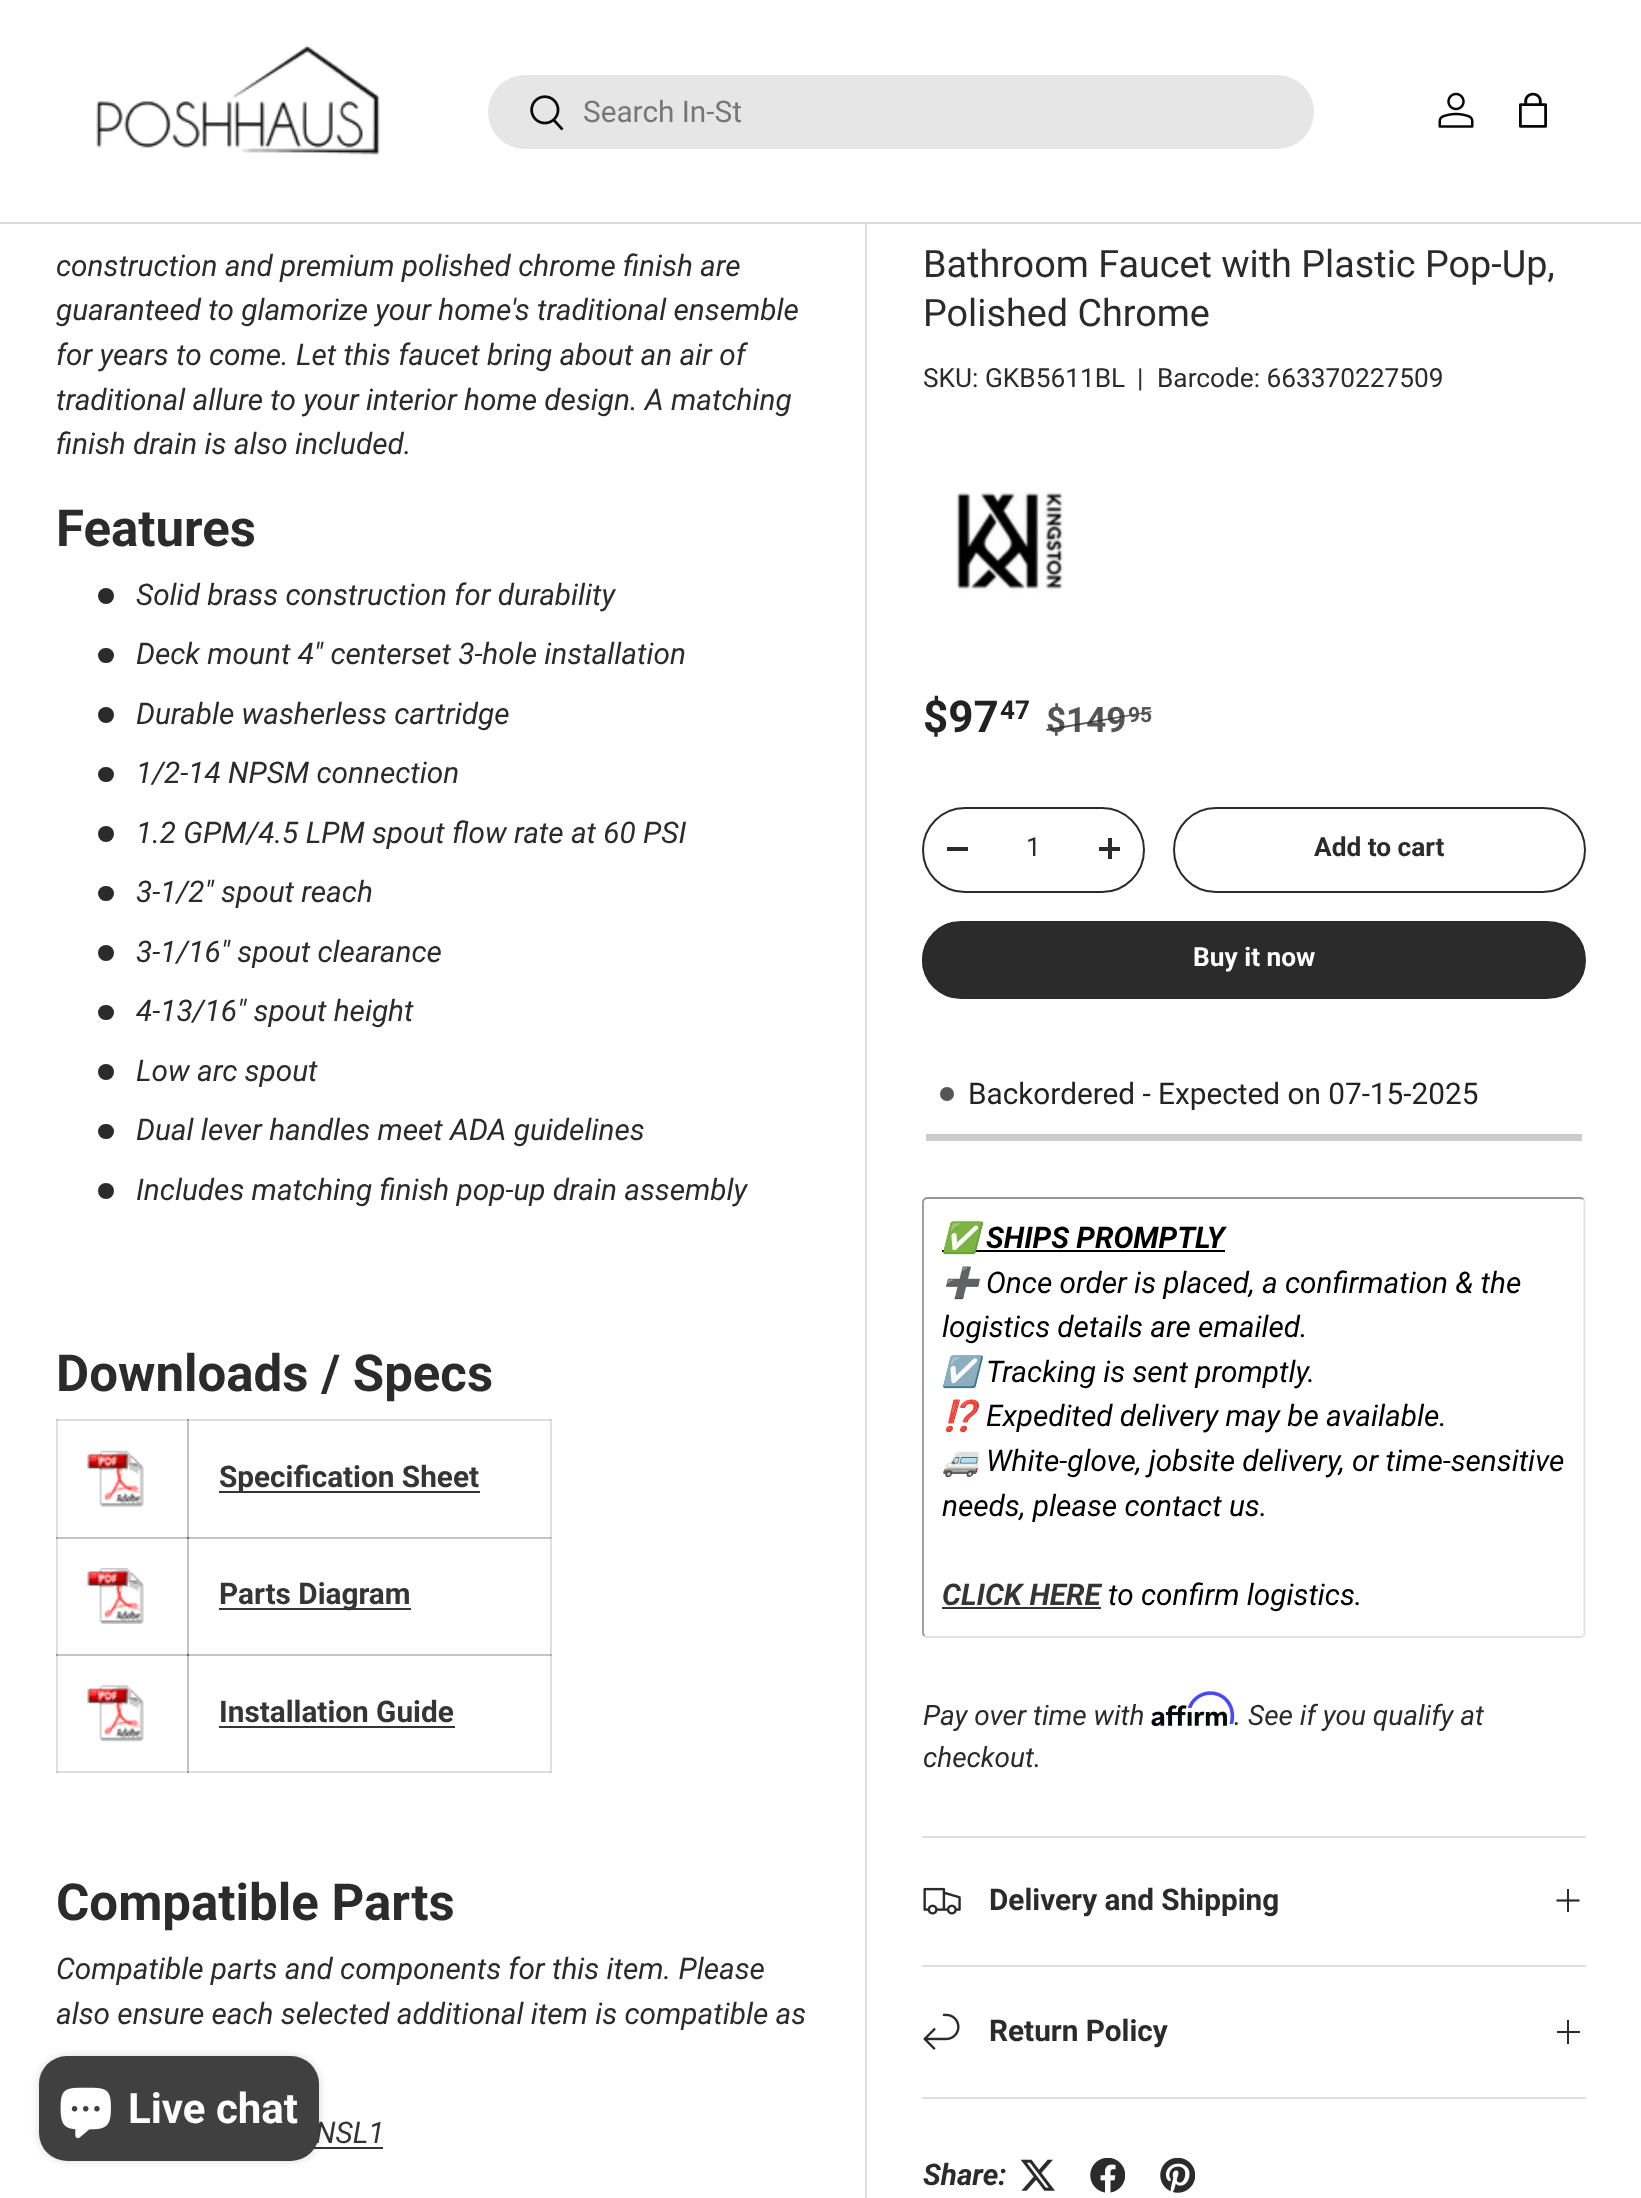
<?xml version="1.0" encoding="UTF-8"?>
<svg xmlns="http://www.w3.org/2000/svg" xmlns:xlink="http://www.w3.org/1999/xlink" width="1641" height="2198">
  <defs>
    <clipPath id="clip1"><rect x="922" y="921" width="664" height="78" rx="39" /></clipPath>
    <linearGradient id="g1" gradientUnits="userSpaceOnUse" x1="-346" y1="725" x2="1535" y2="1194"><stop offset="0.6" stop-color="#525352" /><stop offset="0.6" stop-color="#2a2b2a" /><stop offset="1" stop-color="#2a2b2a" /></linearGradient>
  </defs>
  <rect width="100%" height="100%" fill="#ffffff" />
  <rect x="56" y="1419" width="2" height="354" fill="#dfdfdf" />
  <rect x="56" y="1419" width="133" height="2" fill="#dfdfdf" />
  <rect x="56" y="1419" width="2" height="2" fill="#c4c4c4" />
  <rect x="187" y="1419" width="2" height="119" fill="#c4c4c4" />
  <rect x="550" y="1419" width="2" height="237" fill="#dfdfdf" />
  <rect x="56" y="1537" width="133" height="2" fill="#c4c4c4" />
  <rect x="56" y="1538" width="2" height="1" fill="#adadad" />
  <rect x="56" y="1537" width="2" height="1" fill="#999999" />
  <rect x="187" y="1537" width="2" height="119" fill="#c4c4c4" />
  <rect x="550" y="1537" width="2" height="1" fill="#c4c4c4" />
  <rect x="56" y="1771" width="133" height="2" fill="#dfdfdf" />
  <rect x="56" y="1771" width="2" height="2" fill="#c4c4c4" />
  <rect x="56" y="1654" width="133" height="2" fill="#c4c4c4" />
  <rect x="56" y="1654" width="2" height="2" fill="#999999" />
  <rect x="187" y="1654" width="2" height="119" fill="#c4c4c4" />
  <rect x="187" y="1771" width="364" height="2" fill="#dfdfdf" />
  <rect x="187" y="1771" width="2" height="2" fill="#999999" />
  <rect x="550" y="1654" width="2" height="119" fill="#dfdfdf" />
  <rect x="187" y="1654" width="365" height="2" fill="#c4c4c4" />
  <rect x="550" y="1771" width="1" height="2" fill="#c4c4c4" />
  <rect y="222" width="1641" height="2" fill="#dadada" />
  <image x="96" y="45" width="284" height="110" xlink:href="image1.png" />
  <rect x="488" y="75" width="826" height="74" rx="37" fill="#e6e6e6" />
  <image x="530" y="95" width="34" height="36" xlink:href="image2.png" />
  <image x="1438" y="92" width="36" height="36" xlink:href="image3.png" />
  <image x="1519" y="92" width="28" height="36" xlink:href="image4.png" />
  <circle cx="106" cy="596" r="8" fill="#2a2b2a" />
  <rect x="98" y="648" width="16" height="15" rx="7.5" fill="#2a2b2a" />
  <circle cx="106" cy="715" r="8" fill="#2a2b2a" />
  <rect x="98" y="767" width="16" height="15" rx="7.5" fill="#2a2b2a" />
  <circle cx="106" cy="834" r="8" fill="#2a2b2a" />
  <rect x="98" y="886" width="16" height="15" rx="7.5" fill="#2a2b2a" />
  <circle cx="106" cy="953" r="8" fill="#2a2b2a" />
  <rect x="98" y="1005" width="16" height="15" rx="7.5" fill="#2a2b2a" />
  <circle cx="106" cy="1072" r="8" fill="#2a2b2a" />
  <rect x="98" y="1124" width="16" height="15" rx="7.5" fill="#2a2b2a" />
  <circle cx="106" cy="1191" r="8" fill="#2a2b2a" />
  <image x="87" y="1450" width="57" height="57" xlink:href="image5.png" />
  <rect x="187" y="1419" width="364" height="2" fill="#dfdfdf" />
  <rect x="187" y="1419" width="2" height="2" fill="#999999" />
  <rect x="550" y="1419" width="1" height="2" fill="#c4c4c4" />
  <rect x="219" y="1491" width="261" height="2" fill="#353535" />
  <image x="87" y="1568" width="57" height="56" xlink:href="image6.png" />
  <rect x="187" y="1537" width="364" height="2" fill="#c4c4c4" />
  <rect x="187" y="1538" width="2" height="1" fill="#7a7a7a" />
  <rect x="187" y="1537" width="2" height="1" fill="#646464" />
  <rect x="550" y="1537" width="1" height="2" fill="#adadad" />
  <rect x="550" y="1537" width="1" height="1" fill="#999999" />
  <rect x="219" y="1608" width="192" height="2" fill="#353535" />
  <image x="87" y="1685" width="57" height="57" xlink:href="image7.png" />
  <rect x="187" y="1654" width="2" height="2" fill="#646464" />
  <rect x="550" y="1654" width="1" height="2" fill="#999999" />
  <rect x="219" y="1726" width="236" height="2" fill="#353535" />
  <rect x="314" y="2147" width="69" height="2" fill="#353535" />
  <rect x="865" y="224" width="2" height="1974" fill="#dfdfdf" />
  <image x="956" y="492" width="107" height="101" xlink:href="image8.png" />
  <rect x="923" y="808" width="221" height="84" rx="42" fill="none" stroke="#2a2b2a" stroke-width="2" />
  <rect x="947" y="847" width="21" height="4" fill="#2a2b2a" />
  <rect x="1099" y="847" width="21" height="4" fill="#2a2b2a" />
  <rect x="1108" y="838" width="4" height="21" fill="#2a2b2a" />
  <rect x="1174" y="808" width="411" height="84" rx="42" fill="none" stroke="#2a2b2a" stroke-width="2" />
  <g clip-path="url(#clip1)">
    <rect x="922" y="922" width="662" height="76" fill="url(#g1)" />
  </g>
  <rect x="923" y="922" width="662" height="76" rx="38" fill="none" stroke="#2a2b2a" stroke-width="2" />
  <rect x="926" y="1134" width="656" height="7" fill="#cccccc" />
  <circle cx="947" cy="1094" r="7" fill="#555555" />
  <path d="M 1583.5 1199 c 0.5 1 1 2 1 3 v 431 c 0 1 -0.5 2 -1 3 c -1 0.5 -2 1 -3.5 1 h -652.5 c -1 0 -2.5 -0.5 -3 -1" fill="none" stroke="#e2e2e2" stroke-width="1.8" />
  <path d="M 924.5 1636 c -1 -1 -1.5 -2 -1.5 -3 v -431 c 0 -1 0.5 -2 1.5 -3 c 0.5 -0.5 2 -1 3 -1 h 652.5 c 1.5 0 2.5 0.5 3.5 1" fill="none" stroke="#979797" stroke-width="1.8" />
  <rect x="942" y="1250" width="283" height="2" fill="#000000" />
  <rect x="942" y="1607" width="159" height="2" fill="#353535" />
  <image x="1151" y="1705" width="76" height="22" xlink:href="image10.png" />
  <rect x="922" y="1836" width="664" height="2" fill="#dfdfdf" />
  <rect x="922" y="1965" width="664" height="2" fill="#dfdfdf" />
  <image x="923" y="1887" width="38" height="28" xlink:href="image11.png" />
  <path d="M 1556.5 1900.5 h 23" fill="none" stroke="#2a2b2a" stroke-width="2.2" />
  <rect x="1567" y="1889" width="2" height="23" fill="#2a2b2a" />
  <rect x="922" y="2097" width="664" height="2" fill="#dfdfdf" />
  <image x="923" y="2013" width="37" height="37" xlink:href="image12.png" />
  <image x="1557" y="2020" width="23" height="24" xlink:href="image13.png" />
  <image x="1020" y="2159" width="35" height="32" xlink:href="image14.png" />
  <image x="1090" y="2158" width="35" height="35" xlink:href="image15.png" />
  <image x="1160" y="2158" width="35" height="35" xlink:href="image16.png" />
  <rect x="39" y="2056" width="280" height="105" rx="28" fill="#000000" fill-opacity="0.15" filter="blur(4.5px)" />
  <text x="583" y="122" style="font-family: Roboto; font-size: 29.75px; fill: #777777">Search In-St</text>
  <text x="56" y="276" style="font-family: Roboto; font-size: 29.75px; font-style: italic; fill: #2a2b2a">construction and premium polished chrome finish are</text>
  <text x="56" y="320" style="font-family: Roboto; font-size: 29.75px; font-style: italic; fill: #2a2b2a">guaranteed to glamorize your home's traditional ensemble</text>
  <text x="56" y="365" style="font-family: Roboto; font-size: 29.75px; font-style: italic; fill: #2a2b2a">for years to come. Let this faucet bring about an air of</text>
  <text x="56" y="410" style="font-family: Roboto; font-size: 29.75px; font-style: italic; fill: #2a2b2a">traditional allure to your interior home design. A matching</text>
  <text x="56" y="454" style="font-family: Roboto; font-size: 29.75px; font-style: italic; fill: #2a2b2a">finish drain is also included.</text>
  <text x="56" y="546" style="font-family: Roboto; font-size: 51px; font-weight: bold; fill: #2a2b2a">Features</text>
  <text x="136" y="605" style="font-family: Roboto; font-size: 29.75px; font-style: italic; fill: #2a2b2a">Solid brass construction for durability</text>
  <text x="136" y="664" style="font-family: Roboto; font-size: 29.75px; font-style: italic; fill: #2a2b2a">Deck mount 4" centerset 3-hole installation</text>
  <text x="136" y="724" style="font-family: Roboto; font-size: 29.75px; font-style: italic; fill: #2a2b2a">Durable washerless cartridge</text>
  <text x="136" y="783" style="font-family: Roboto; font-size: 29.75px; font-style: italic; fill: #2a2b2a">1/2-14 NPSM connection</text>
  <text x="136" y="843" style="font-family: Roboto; font-size: 29.75px; font-style: italic; fill: #2a2b2a">1.2 GPM/4.5 LPM spout flow rate at 60 PSI</text>
  <text x="136" y="902" style="font-family: Roboto; font-size: 29.75px; font-style: italic; fill: #2a2b2a">3-1/2" spout reach</text>
  <text x="136" y="962" style="font-family: Roboto; font-size: 29.75px; font-style: italic; fill: #2a2b2a">3-1/16" spout clearance</text>
  <text x="136" y="1021" style="font-family: Roboto; font-size: 29.75px; font-style: italic; fill: #2a2b2a">4-13/16" spout height</text>
  <text x="136" y="1081" style="font-family: Roboto; font-size: 29.75px; font-style: italic; fill: #2a2b2a">Low arc spout</text>
  <text x="136" y="1140" style="font-family: Roboto; font-size: 29.75px; font-style: italic; fill: #2a2b2a">Dual lever handles meet ADA guidelines</text>
  <text x="136" y="1200" style="font-family: Roboto; font-size: 29.75px; font-style: italic; fill: #2a2b2a">Includes matching finish pop-up drain assembly</text>
  <text x="56" y="1391" style="font-family: Roboto; font-size: 51px; font-weight: bold; fill: #2a2b2a">Downloads / Specs</text>
  <text x="219" y="1487" style="font-family: Roboto; font-size: 29.75px; font-weight: bold; fill: #353535">Specification Sheet</text>
  <text x="219" y="1604" style="font-family: Roboto; font-size: 29.75px; font-weight: bold; fill: #353535">Parts Diagram</text>
  <text x="219" y="1722" style="font-family: Roboto; font-size: 29.75px; font-weight: bold; fill: #353535">Installation Guide</text>
  <text x="56" y="1920" style="font-family: Roboto; font-size: 51px; font-weight: bold; fill: #2a2b2a">Compatible Parts</text>
  <text x="56" y="1979" style="font-family: Roboto; font-size: 29.75px; font-style: italic; fill: #2a2b2a">Compatible parts and components for this item. Please</text>
  <text x="56" y="2024" style="font-family: Roboto; font-size: 29.75px; font-style: italic; fill: #2a2b2a">also ensure each selected additional item is compatible as</text>
  <text x="315" y="2143" style="font-family: Roboto; font-size: 29.75px; font-style: italic; fill: #353535">NSL1</text>
  <text x="923" y="277" style="font-family: Roboto; font-size: 37.75px; fill: #2a2b2a">Bathroom Faucet with Plastic Pop-Up,</text>
  <text x="923" y="326" style="font-family: Roboto; font-size: 37.75px; fill: #2a2b2a">Polished Chrome</text>
  <text x="923" y="387" style="font-family: Roboto; font-size: 26.25px; fill: #2a2b2a">SKU: GKB5611BL</text>
  <text x="1137" y="387" style="font-family: Roboto; font-size: 26.25px; fill: #2a2b2a">|</text>
  <text x="1157" y="387" style="font-family: Roboto; font-size: 26.25px; fill: #2a2b2a">Barcode: 663370227509</text>
  <text x="923" y="732" style="font-family: Roboto; font-size: 44px; font-weight: bold; fill: #222222">$97</text>
  <text x="1000" y="719" style="font-family: Roboto; font-size: 26px; font-weight: bold; fill: #222222">47</text>
  <text x="1046" y="732" style="font-family: Roboto; font-size: 35px; font-weight: bold; fill: #555555">$149</text>
  <path d="M 1046 729 l 105 -18 l 1 1 l -105 19 z" fill="#2a2b2a" fill-opacity="0.8" />
  <text x="1128" y="722" style="font-family: Roboto; font-size: 21px; font-weight: bold; fill: #555555">95</text>
  <text x="1026" y="856" style="font-family: Roboto; font-size: 26.25px; fill: #2a2b2a">1</text>
  <text x="1314" y="856" style="font-family: Roboto; font-size: 26.25px; font-weight: bold; fill: #2a2b2a">Add to cart</text>
  <text x="1193" y="966" style="font-family: Roboto; font-size: 26.25px; font-weight: bold; fill: #ffffff">Buy it now</text>
  <text x="968" y="1104" style="font-family: Roboto; font-size: 29.75px; fill: #222222">Backordered - Expected on 07-15-2025</text>
  <text x="942" y="1248" style="font-family: Noto Color Emoji; font-size: 29.75px; font-weight: bold; font-style: italic; fill: #000000">✅</text>
  <text x="986" y="1248" style="font-family: Roboto; font-size: 29.75px; font-weight: bold; font-style: italic; fill: #000000">SHIPS PROMPTLY</text>
  <text x="942" y="1293" style="font-family: Noto Color Emoji; font-size: 29.75px; font-style: italic; fill: #000000">➕</text>
  <text x="986" y="1293" style="font-family: Roboto; font-size: 29.75px; font-style: italic; fill: #000000">Once order is placed, a confirmation &amp; the</text>
  <text x="942" y="1337" style="font-family: Roboto; font-size: 29.75px; font-style: italic; fill: #000000">logistics details are emailed.</text>
  <text x="942" y="1382" style="font-family: Noto Color Emoji; font-size: 29.75px; font-style: italic; fill: #000000">☑️</text>
  <text x="986" y="1382" style="font-family: Roboto; font-size: 29.75px; font-style: italic; fill: #000000">Tracking is sent promptly.</text>
  <text x="942" y="1426" style="font-family: Noto Color Emoji; font-size: 29.75px; font-style: italic; fill: #000000">⁉️</text>
  <text x="986" y="1426" style="font-family: Roboto; font-size: 29.75px; font-style: italic; fill: #000000">Expedited delivery may be available.</text>
  <text x="942" y="1471" style="font-family: Noto Color Emoji; font-size: 29.75px; font-style: italic; fill: #000000">🚐</text>
  <text x="986" y="1471" style="font-family: Roboto; font-size: 29.75px; font-style: italic; fill: #000000">White-glove, jobsite delivery, or time-sensitive</text>
  <text x="942" y="1516" style="font-family: Roboto; font-size: 29.75px; font-style: italic; fill: #000000">needs, please contact us.</text>
  <text x="942" y="1605" style="font-family: Roboto; font-size: 29.75px; font-weight: bold; font-style: italic; fill: #353535">CLICK HERE</text>
  <text x="1108" y="1605" style="font-family: Roboto; font-size: 29.75px; font-style: italic; fill: #000000">to confirm logistics.</text>
  <text x="923" y="1725" style="font-family: Roboto; font-size: 28px; font-style: italic; fill: #2a2b2a">Pay over time with</text>
  <text x="1234" y="1725" style="font-family: Roboto; font-size: 28px; font-style: italic; fill: #2a2b2a">. See if you qualify at</text>
  <image x="1187" y="1691" width="48" height="33" xlink:href="image9.png" />
  <text x="923" y="1767" style="font-family: Roboto; font-size: 28px; font-style: italic; fill: #2a2b2a">checkout.</text>
  <text x="989" y="1910" style="font-family: Roboto; font-size: 29.75px; font-weight: bold; fill: #2a2b2a">Delivery and Shipping</text>
  <text x="989" y="2041" style="font-family: Roboto; font-size: 29.75px; font-weight: bold; fill: #2a2b2a">Return Policy</text>
  <text x="923" y="2185" style="font-family: Roboto; font-size: 29.75px; font-weight: bold; font-style: italic; fill: #2a2b2a">Share:</text>
  <rect x="39" y="2056" width="280" height="105" rx="28" fill="#404040" />
  <image x="60" y="2087" width="51" height="52" xlink:href="image17.png" />
  <text x="128" y="2123" style="font-family: Roboto; font-size: 42px; font-weight: bold; fill: #ffffff">Live chat</text>
</svg>
